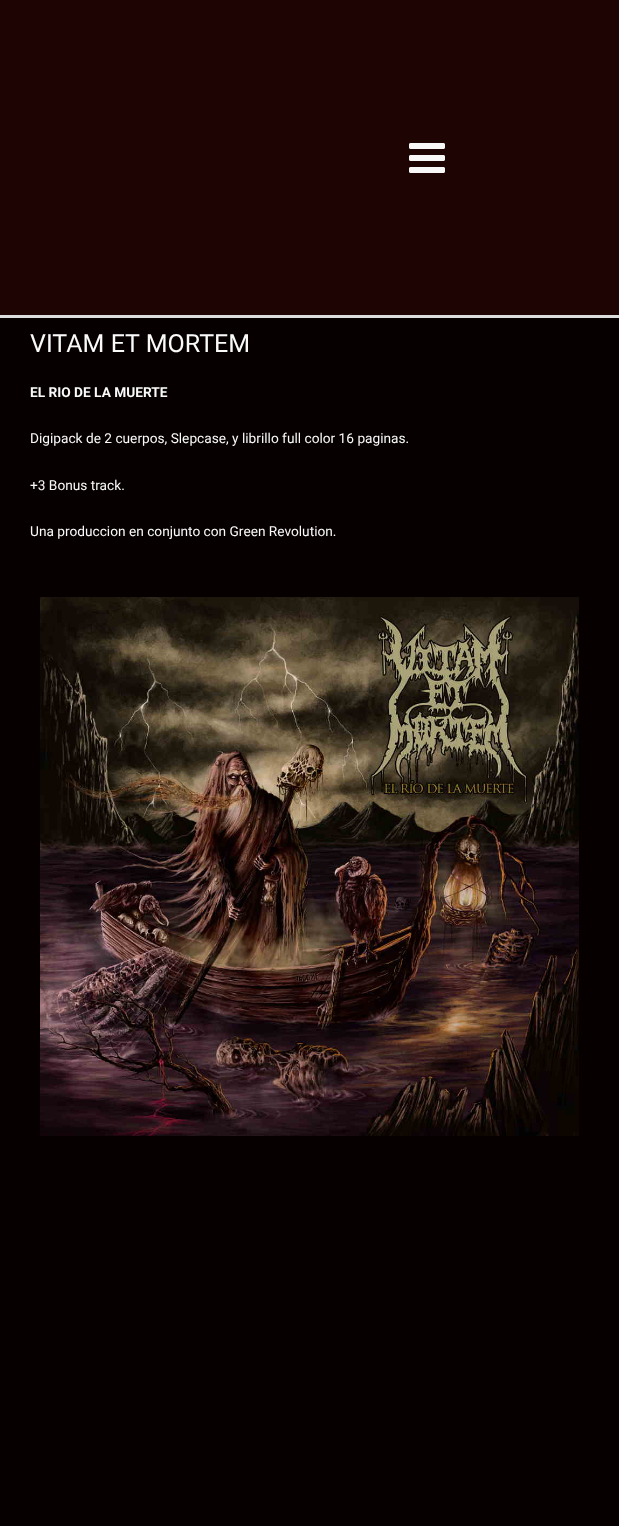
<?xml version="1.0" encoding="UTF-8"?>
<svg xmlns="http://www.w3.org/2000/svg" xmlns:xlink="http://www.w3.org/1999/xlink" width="619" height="1526">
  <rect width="100%" height="100%" fill="#070000" />
  <rect width="619" height="315" fill="#1f0404" />
  <rect y="315" width="619" height="3" fill="#dddddd" />
  <image x="409" y="143" width="36" height="30" xlink:href="image1.png" />
  <image x="40" y="597" width="539" height="539" xlink:href="image2.png" />
  <text x="30" y="352" style="font-family: Roboto; font-size: 25px; fill: #fafafa">VITAM ET MORTEM</text>
  <text x="30" y="397" style="font-family: Roboto; font-size: 13.7px; font-weight: bold; fill: #fafafa">EL RIO DE LA MUERTE</text>
  <text x="30" y="443" style="font-family: Roboto; font-size: 13.7px; fill: #fafafa">Digipack de 2 cuerpos, Slepcase, y librillo full color 16 paginas.</text>
  <text x="30" y="490" style="font-family: Roboto; font-size: 13.7px; fill: #fafafa">+3 Bonus track.</text>
  <text x="30" y="536" style="font-family: Roboto; font-size: 13.7px; fill: #fafafa">Una produccion en conjunto con Green Revolution.</text>
</svg>
